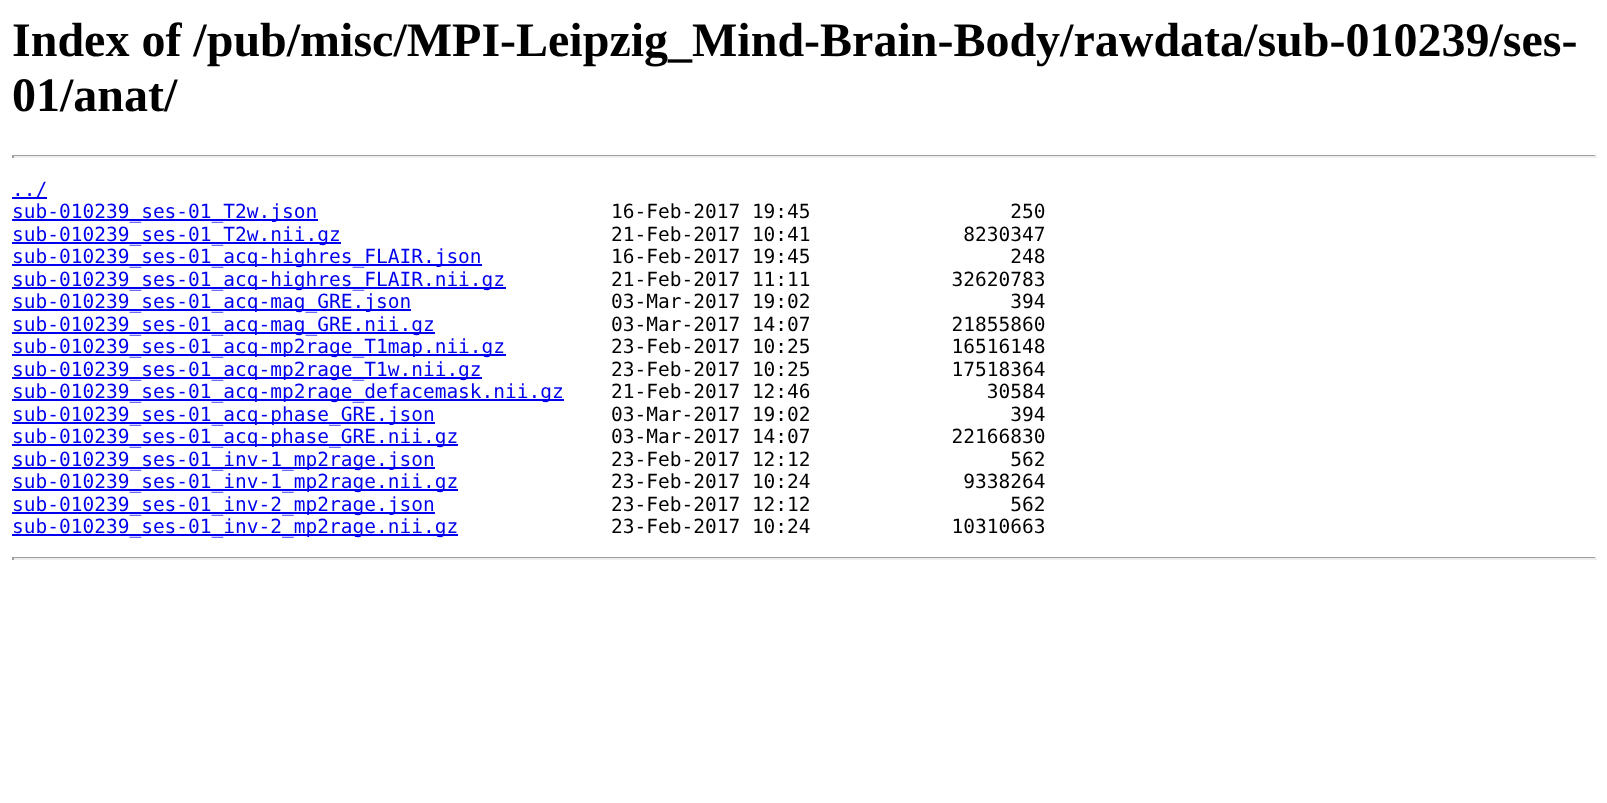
<?xml version="1.0" encoding="UTF-8"?>
<svg xmlns="http://www.w3.org/2000/svg" xmlns:xlink="http://www.w3.org/1999/xlink" width="1607" height="803">
  <rect width="100%" height="100%" fill="#ffffff" />
  <rect x="12" y="155" width="1584" height="1" fill="#9f9f9f" />
  <rect x="1595" y="155" width="2" height="3" fill="#eeeeee" />
  <rect x="12" y="156" width="1584" height="2" fill="#eeeeee" />
  <rect x="12" y="155" width="2" height="3" fill="#9f9f9f" />
  <rect x="12" y="197" width="35" height="2" fill="#0000ee" />
  <rect x="12" y="219" width="306" height="2" fill="#0000ee" />
  <rect x="12" y="242" width="329" height="2" fill="#0000ee" />
  <rect x="12" y="264" width="470" height="2" fill="#0000ee" />
  <rect x="12" y="287" width="494" height="2" fill="#0000ee" />
  <rect x="12" y="309" width="399" height="2" fill="#0000ee" />
  <rect x="12" y="332" width="423" height="2" fill="#0000ee" />
  <rect x="12" y="354" width="494" height="2" fill="#0000ee" />
  <rect x="12" y="377" width="470" height="2" fill="#0000ee" />
  <rect x="12" y="399" width="552" height="2" fill="#0000ee" />
  <rect x="12" y="422" width="423" height="2" fill="#0000ee" />
  <rect x="12" y="444" width="446" height="2" fill="#0000ee" />
  <rect x="12" y="467" width="423" height="2" fill="#0000ee" />
  <rect x="12" y="489" width="446" height="2" fill="#0000ee" />
  <rect x="12" y="512" width="423" height="2" fill="#0000ee" />
  <rect x="12" y="534" width="446" height="2" fill="#0000ee" />
  <rect x="12" y="557" width="1584" height="1" fill="#9f9f9f" />
  <rect x="1595" y="557" width="2" height="3" fill="#eeeeee" />
  <rect x="12" y="558" width="1584" height="2" fill="#eeeeee" />
  <rect x="12" y="557" width="2" height="3" fill="#9f9f9f" />
  <text x="12" y="56" style="font-family: Liberation Serif; font-size: 48px; font-weight: bold; fill: #000000">Index of /pub/misc/MPI-Leipzig_Mind-Brain-Body/rawdata/sub-010239/ses-</text>
  <text x="12" y="111" style="font-family: Liberation Serif; font-size: 48px; font-weight: bold; fill: #000000">01/anat/</text>
  <text x="12" y="196" style="font-family: DejaVu Sans Mono; font-size: 19.5px; fill: #0000ee">../</text>
  <text x="12" y="218" style="font-family: DejaVu Sans Mono; font-size: 19.5px; fill: #0000ee">sub-010239_ses-01_T2w.json</text>
  <text x="611" y="218" style="font-family: DejaVu Sans Mono; font-size: 19.5px; fill: #000000" xml:space="preserve">16-Feb-2017 19:45                 250</text>
  <text x="12" y="241" style="font-family: DejaVu Sans Mono; font-size: 19.5px; fill: #0000ee">sub-010239_ses-01_T2w.nii.gz</text>
  <text x="611" y="241" style="font-family: DejaVu Sans Mono; font-size: 19.5px; fill: #000000" xml:space="preserve">21-Feb-2017 10:41             8230347</text>
  <text x="12" y="263" style="font-family: DejaVu Sans Mono; font-size: 19.5px; fill: #0000ee">sub-010239_ses-01_acq-highres_FLAIR.json</text>
  <text x="611" y="263" style="font-family: DejaVu Sans Mono; font-size: 19.5px; fill: #000000" xml:space="preserve">16-Feb-2017 19:45                 248</text>
  <text x="12" y="286" style="font-family: DejaVu Sans Mono; font-size: 19.5px; fill: #0000ee">sub-010239_ses-01_acq-highres_FLAIR.nii.gz</text>
  <text x="611" y="286" style="font-family: DejaVu Sans Mono; font-size: 19.5px; fill: #000000" xml:space="preserve">21-Feb-2017 11:11            32620783</text>
  <text x="12" y="308" style="font-family: DejaVu Sans Mono; font-size: 19.5px; fill: #0000ee">sub-010239_ses-01_acq-mag_GRE.json</text>
  <text x="611" y="308" style="font-family: DejaVu Sans Mono; font-size: 19.5px; fill: #000000" xml:space="preserve">03-Mar-2017 19:02                 394</text>
  <text x="12" y="331" style="font-family: DejaVu Sans Mono; font-size: 19.5px; fill: #0000ee">sub-010239_ses-01_acq-mag_GRE.nii.gz</text>
  <text x="611" y="331" style="font-family: DejaVu Sans Mono; font-size: 19.5px; fill: #000000" xml:space="preserve">03-Mar-2017 14:07            21855860</text>
  <text x="12" y="353" style="font-family: DejaVu Sans Mono; font-size: 19.5px; fill: #0000ee">sub-010239_ses-01_acq-mp2rage_T1map.nii.gz</text>
  <text x="611" y="353" style="font-family: DejaVu Sans Mono; font-size: 19.5px; fill: #000000" xml:space="preserve">23-Feb-2017 10:25            16516148</text>
  <text x="12" y="376" style="font-family: DejaVu Sans Mono; font-size: 19.5px; fill: #0000ee">sub-010239_ses-01_acq-mp2rage_T1w.nii.gz</text>
  <text x="611" y="376" style="font-family: DejaVu Sans Mono; font-size: 19.5px; fill: #000000" xml:space="preserve">23-Feb-2017 10:25            17518364</text>
  <text x="12" y="398" style="font-family: DejaVu Sans Mono; font-size: 19.5px; fill: #0000ee">sub-010239_ses-01_acq-mp2rage_defacemask.nii.gz</text>
  <text x="611" y="398" style="font-family: DejaVu Sans Mono; font-size: 19.5px; fill: #000000" xml:space="preserve">21-Feb-2017 12:46               30584</text>
  <text x="12" y="421" style="font-family: DejaVu Sans Mono; font-size: 19.5px; fill: #0000ee">sub-010239_ses-01_acq-phase_GRE.json</text>
  <text x="611" y="421" style="font-family: DejaVu Sans Mono; font-size: 19.5px; fill: #000000" xml:space="preserve">03-Mar-2017 19:02                 394</text>
  <text x="12" y="443" style="font-family: DejaVu Sans Mono; font-size: 19.5px; fill: #0000ee">sub-010239_ses-01_acq-phase_GRE.nii.gz</text>
  <text x="611" y="443" style="font-family: DejaVu Sans Mono; font-size: 19.5px; fill: #000000" xml:space="preserve">03-Mar-2017 14:07            22166830</text>
  <text x="12" y="466" style="font-family: DejaVu Sans Mono; font-size: 19.5px; fill: #0000ee">sub-010239_ses-01_inv-1_mp2rage.json</text>
  <text x="611" y="466" style="font-family: DejaVu Sans Mono; font-size: 19.5px; fill: #000000" xml:space="preserve">23-Feb-2017 12:12                 562</text>
  <text x="12" y="488" style="font-family: DejaVu Sans Mono; font-size: 19.5px; fill: #0000ee">sub-010239_ses-01_inv-1_mp2rage.nii.gz</text>
  <text x="611" y="488" style="font-family: DejaVu Sans Mono; font-size: 19.5px; fill: #000000" xml:space="preserve">23-Feb-2017 10:24             9338264</text>
  <text x="12" y="511" style="font-family: DejaVu Sans Mono; font-size: 19.5px; fill: #0000ee">sub-010239_ses-01_inv-2_mp2rage.json</text>
  <text x="611" y="511" style="font-family: DejaVu Sans Mono; font-size: 19.5px; fill: #000000" xml:space="preserve">23-Feb-2017 12:12                 562</text>
  <text x="12" y="533" style="font-family: DejaVu Sans Mono; font-size: 19.5px; fill: #0000ee">sub-010239_ses-01_inv-2_mp2rage.nii.gz</text>
  <text x="611" y="533" style="font-family: DejaVu Sans Mono; font-size: 19.5px; fill: #000000" xml:space="preserve">23-Feb-2017 10:24            10310663</text>
</svg>
